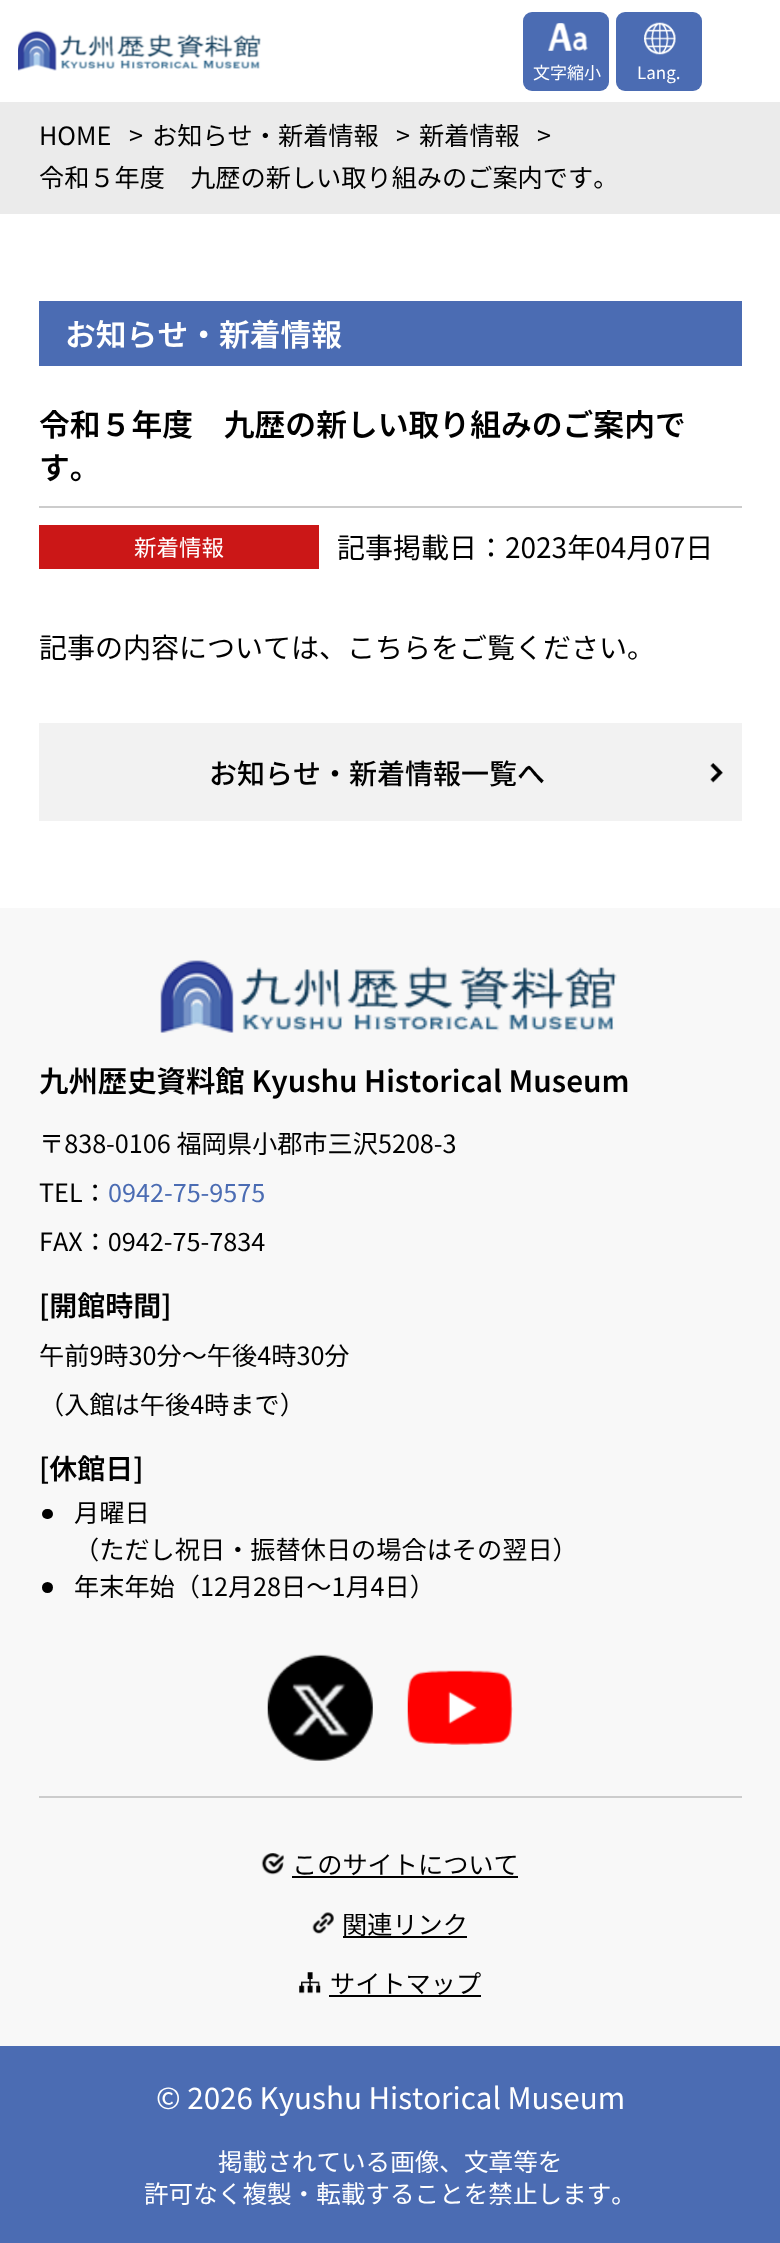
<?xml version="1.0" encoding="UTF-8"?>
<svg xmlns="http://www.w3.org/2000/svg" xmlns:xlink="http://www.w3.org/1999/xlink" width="780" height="2243">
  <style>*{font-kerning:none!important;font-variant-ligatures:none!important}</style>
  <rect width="100%" height="100%" fill="#ffffff" />
  <image x="18" y="30" width="243" height="41" xlink:href="image1.png" />
  <rect x="523" y="12" width="86" height="79" rx="9" fill="#4b6cb3" />
  <image x="548" y="23" width="40" height="28" xlink:href="image2.png" />
  <rect x="616" y="12" width="86" height="79" rx="9" fill="#4b6cb3" />
  <image x="644" y="22" width="32" height="33" xlink:href="image3.png" />
  <rect y="102" width="780" height="112" fill="#ebebeb" />
  <rect x="39" y="301" width="703" height="65" fill="#4b6cb3" />
  <rect x="39" y="506" width="703" height="2" fill="#cccccc" />
  <rect x="39" y="525" width="280" height="44" fill="#cb1717" />
  <rect x="39" y="723" width="703" height="98" fill="#f2f2f2" />
  <image x="710" y="763" width="13" height="20" xlink:href="image4.png" />
  <rect y="908" width="780" height="1138" fill="#f8f8f8" />
  <image x="160" y="960" width="457" height="73" xlink:href="image5.png" />
  <rect x="42" y="1509" width="11" height="10" rx="5" fill="#000000" />
  <circle cx="47.5" cy="1587.5" r="5.5" fill="#000000" />
  <image x="267" y="1654" width="106" height="107" xlink:href="image6.png" />
  <image x="407" y="1670" width="106" height="75" xlink:href="image7.png" />
  <rect x="39" y="1796" width="703" height="2" fill="#cccccc" />
  <image x="261" y="1853" width="23" height="22" xlink:href="image8.png" />
  <rect x="292" y="1876" width="226" height="2" fill="#000000" />
  <image x="312" y="1912" width="22" height="22" xlink:href="image9.png" />
  <rect x="343" y="1936" width="124" height="2" fill="#000000" />
  <image x="299" y="1972" width="22" height="22" xlink:href="image10.png" />
  <rect x="329" y="1995" width="152" height="2" fill="#000000" />
  <rect y="2046" width="780" height="197" fill="#4b6cb3" />
  <text x="533" y="79" style="font-family: Noto Sans JP; font-size: 17px; fill: #ffffff">文字縮小</text>
  <text x="637" y="79" style="font-family: Noto Sans JP; font-size: 17px; fill: #ffffff">Lang.</text>
  <text x="39" y="145" style="font-family: Noto Sans JP; font-size: 25.2px; fill: #000000">HOME</text>
  <text x="129" y="145" style="font-family: Noto Sans JP; font-size: 25.2px; fill: #000000">&gt;</text>
  <text x="152" y="145" style="font-family: Noto Sans JP; font-size: 25.2px; fill: #000000">お知らせ・新着情報</text>
  <text x="396" y="145" style="font-family: Noto Sans JP; font-size: 25.2px; fill: #000000">&gt;</text>
  <text x="419" y="145" style="font-family: Noto Sans JP; font-size: 25.2px; fill: #000000">新着情報</text>
  <text x="537" y="145" style="font-family: Noto Sans JP; font-size: 25.2px; fill: #000000">&gt;</text>
  <text x="39" y="187" style="font-family: Noto Sans JP; font-size: 25.2px; fill: #000000">令和５年度　九歴の新しい取り組みのご案内です。</text>
  <text x="65" y="346" style="font-family: Noto Sans JP; font-size: 30.8px; font-weight: 600; fill: #ffffff">お知らせ・新着情報</text>
  <text x="39" y="436" style="font-family: Noto Sans JP; font-size: 30.8px; font-weight: 600; fill: #000000">令和５年度　九歴の新しい取り組みのご案内で</text>
  <text x="39" y="479" style="font-family: Noto Sans JP; font-size: 30.8px; font-weight: 600; fill: #000000">す。</text>
  <text x="134" y="556" style="font-family: Noto Sans JP; font-size: 22.5px; fill: #ffffff">新着情報</text>
  <text x="337" y="558" style="font-family: Noto Sans JP; font-size: 28px; fill: #000000">記事掲載日：2023年04月07日</text>
  <text x="39" y="658" style="font-family: Noto Sans JP; font-size: 28px; fill: #000000">記事の内容については、こちらをご覧ください。</text>
  <text x="209" y="784" style="font-family: Noto Sans JP; font-size: 28px; font-weight: 500; fill: #000000">お知らせ・新着情報一覧へ</text>
  <text x="39" y="1092" style="font-family: Noto Sans JP; font-size: 29.4px; font-weight: 600; fill: #000000">九州歴史資料館 Kyushu Historical Museum</text>
  <text x="39" y="1153" style="font-family: Noto Sans JP; font-size: 25.2px; fill: #000000">〒838-0106 福岡県小郡市三沢5208-3</text>
  <text x="39" y="1202" style="font-family: Noto Sans JP; font-size: 25.2px; fill: #000000">TEL：</text>
  <text x="108" y="1202" style="font-family: Noto Sans JP; font-size: 25.2px; fill: #4b6cb3">0942-75-9575</text>
  <text x="39" y="1251" style="font-family: Noto Sans JP; font-size: 25.2px; fill: #000000">FAX：0942-75-7834</text>
  <text x="39" y="1316" style="font-family: Noto Sans JP; font-size: 28px; font-weight: 600; fill: #000000">[開館時間]</text>
  <text x="39" y="1365" style="font-family: Noto Sans JP; font-size: 25.2px; fill: #000000">午前9時30分～午後4時30分</text>
  <text x="39" y="1414" style="font-family: Noto Sans JP; font-size: 25.2px; fill: #000000">（入館は午後4時まで）</text>
  <text x="39" y="1479" style="font-family: Noto Sans JP; font-size: 28px; font-weight: 600; fill: #000000">[休館日]</text>
  <text x="74" y="1522" style="font-family: Noto Sans JP; font-size: 25.2px; fill: #000000">月曜日</text>
  <text x="74" y="1559" style="font-family: Noto Sans JP; font-size: 25.2px; fill: #000000">（ただし祝日・振替休日の場合はその翌日）</text>
  <text x="74" y="1596" style="font-family: Noto Sans JP; font-size: 25.2px; fill: #000000">年末年始（12月28日～1月4日）</text>
  <text x="292" y="1874" style="font-family: Noto Sans JP; font-size: 25.2px; fill: #000000">このサイトについて</text>
  <text x="342" y="1934" style="font-family: Noto Sans JP; font-size: 25.2px; fill: #000000">関連リンク</text>
  <text x="330" y="1993" style="font-family: Noto Sans JP; font-size: 25.2px; fill: #000000">サイトマップ</text>
  <text x="156" y="2109" style="font-family: Noto Sans JP; font-size: 29.6px; fill: #ffffff">© 2026 Kyushu Historical Museum</text>
  <text x="218" y="2171" style="font-family: Noto Sans JP; font-size: 24.6px; fill: #ffffff">掲載されている画像、文章等を</text>
  <text x="144" y="2203" style="font-family: Noto Sans JP; font-size: 24.6px; fill: #ffffff">許可なく複製・転載することを禁止します。</text>
</svg>
